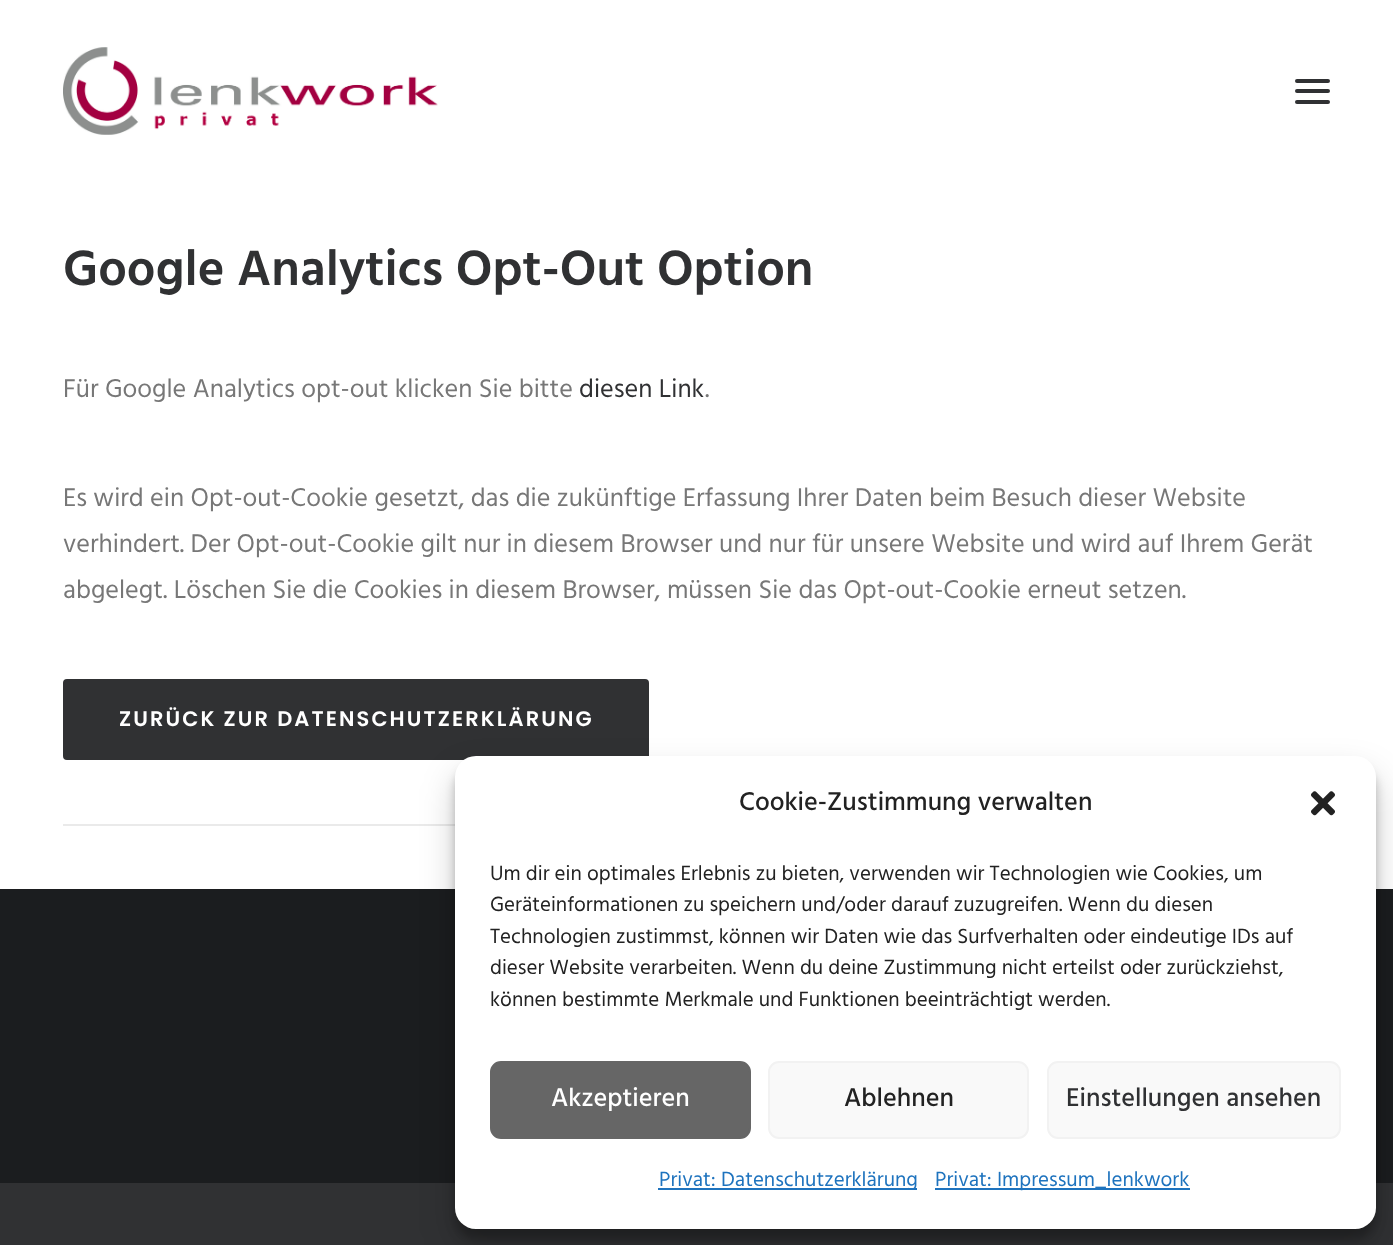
<?xml version="1.0" encoding="UTF-8"?>
<svg xmlns="http://www.w3.org/2000/svg" xmlns:xlink="http://www.w3.org/1999/xlink" width="1393" height="1245">
  <rect width="100%" height="100%" fill="#ffffff" />
  <image x="63" y="47" width="375" height="88" xlink:href="image1.png" />
  <rect x="1295" y="89" width="35" height="4" rx="2" fill="#303133" />
  <rect x="1295" y="79" width="35" height="4" rx="2" fill="#303133" />
  <rect x="1295" y="100" width="35" height="4" rx="2" fill="#303133" />
  <rect x="64" y="680" width="584" height="79" rx="3" fill="#303133" stroke="#303133" stroke-width="2" />
  <rect x="63" y="824" width="392" height="2" fill="#eaeaea" />
  <rect y="889" width="1393" height="294" fill="#1b1d1f" />
  <rect y="1183" width="1393" height="62" fill="#303133" />
  <rect x="455" y="767" width="921" height="472" rx="21" fill="#000000" fill-opacity="0.23" filter="blur(5px)" />
  <rect x="455" y="774" width="921" height="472" rx="21" fill="#000000" fill-opacity="0.19" filter="blur(17.5px)" />
  <rect x="455" y="756" width="921" height="473" rx="21" fill="#ffffff" />
  <image x="1311" y="791" width="24" height="25" xlink:href="image2.png" />
  <rect x="491" y="1062" width="259" height="76" rx="10" fill="#666666" stroke="#666666" stroke-width="2" />
  <rect x="769" y="1062" width="259" height="76" rx="10" fill="#f9f9f9" stroke="#f2f2f2" stroke-width="2" />
  <rect x="1048" y="1062" width="292" height="76" rx="10" fill="#f9f9f9" stroke="#f2f2f2" stroke-width="2" />
  <rect x="658" y="1188" width="259" height="2" fill="#1e73be" />
  <rect x="935" y="1188" width="255" height="2" fill="#1e73be" />
  <text x="63" y="285" style="font-family: Hind; font-size: 50.75px; font-weight: 600; fill: #303133">Google Analytics Opt-Out Option</text>
  <text x="63" y="397" style="font-family: Hind; font-size: 26.25px; fill: #777777">Für Google Analytics opt-out klicken Sie bitte</text>
  <text x="579" y="397" style="font-family: Hind; font-size: 26.25px; fill: #303133">diesen Link</text>
  <text x="705" y="397" style="font-family: Hind; font-size: 26.25px; fill: #777777">.</text>
  <text x="63" y="506" style="font-family: Hind; font-size: 26.25px; fill: #777777">Es wird ein Opt-out-Cookie gesetzt, das die zukünftige Erfassung Ihrer Daten beim Besuch dieser Website</text>
  <text x="63" y="552" style="font-family: Hind; font-size: 26.25px; fill: #777777">verhindert. Der Opt-out-Cookie gilt nur in diesem Browser und nur für unsere Website und wird auf Ihrem Gerät</text>
  <text x="63" y="598" style="font-family: Hind; font-size: 26.25px; fill: #777777">abgelegt. Löschen Sie die Cookies in diesem Browser, müssen Sie das Opt-out-Cookie erneut setzen.</text>
  <text x="119" y="726" style="font-family: Poppins; font-size: 21px; font-weight: 600; letter-spacing: 2.1px; fill: #ffffff">ZURÜCK ZUR DATENSCHUTZERKLÄRUNG</text>
  <text x="739" y="810" style="font-family: Hind; font-size: 26.25px; font-weight: 500; fill: #222222">Cookie-Zustimmung verwalten</text>
  <text x="490" y="880" style="font-family: Hind; font-size: 21px; fill: #222222">Um dir ein optimales Erlebnis zu bieten, verwenden wir Technologien wie Cookies, um</text>
  <text x="490" y="911" style="font-family: Hind; font-size: 21px; fill: #222222">Geräteinformationen zu speichern und/oder darauf zuzugreifen. Wenn du diesen</text>
  <text x="490" y="943" style="font-family: Hind; font-size: 21px; fill: #222222">Technologien zustimmst, können wir Daten wie das Surfverhalten oder eindeutige IDs auf</text>
  <text x="490" y="974" style="font-family: Hind; font-size: 21px; fill: #222222">dieser Website verarbeiten. Wenn du deine Zustimmung nicht erteilst oder zurückziehst,</text>
  <text x="490" y="1006" style="font-family: Hind; font-size: 21px; fill: #222222">können bestimmte Merkmale und Funktionen beeinträchtigt werden.</text>
  <text x="551" y="1106" style="font-family: Hind; font-size: 26.25px; font-weight: 500; fill: #ffffff">Akzeptieren</text>
  <text x="844" y="1106" style="font-family: Hind; font-size: 26.25px; font-weight: 500; fill: #222222">Ablehnen</text>
  <text x="1066" y="1106" style="font-family: Hind; font-size: 26.25px; font-weight: 500; fill: #303133">Einstellungen ansehen</text>
  <text x="659" y="1186" style="font-family: Hind; font-size: 21px; fill: #1e73be">Privat: Datenschutzerklärung</text>
  <text x="935" y="1186" style="font-family: Hind; font-size: 21px; fill: #1e73be">Privat: Impressum_lenkwork</text>
</svg>
